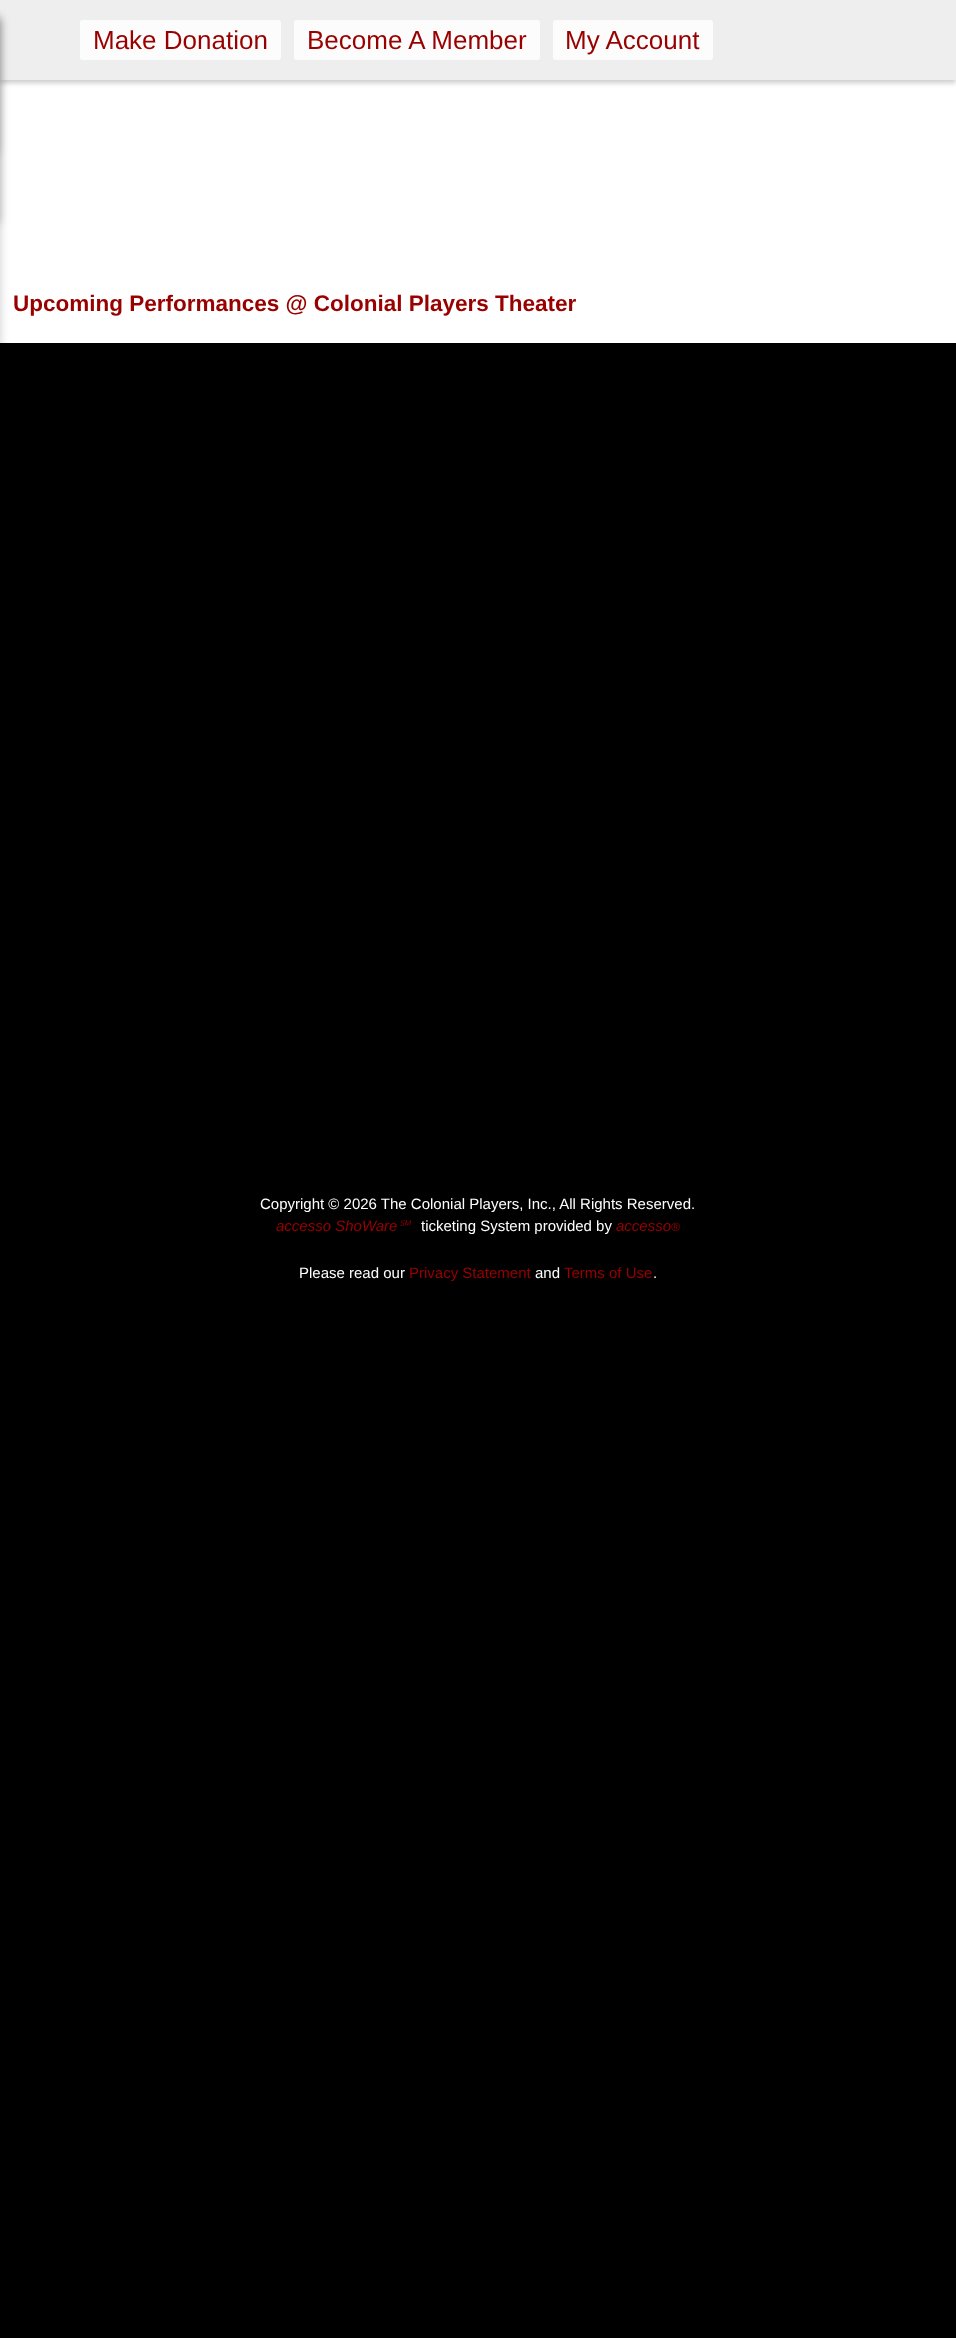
<?xml version="1.0" encoding="UTF-8"?>
<svg xmlns="http://www.w3.org/2000/svg" xmlns:xlink="http://www.w3.org/1999/xlink" width="956" height="2338">
  <rect width="100%" height="100%" fill="#000000" />
  <rect y="80" width="956" height="263" fill="#ffffff" />
  <rect y="3" width="956" height="80" fill="#000000" fill-opacity="0.2" filter="blur(2.5px)" />
  <rect width="956" height="80" fill="#eeeeee" />
  <rect x="80" y="20" width="201" height="40" rx="2.5" fill="#fcfcfc" />
  <rect x="294" y="20" width="246" height="40" rx="2.5" fill="#fcfcfc" />
  <rect x="553" y="20" width="160" height="40" rx="2.5" fill="#fcfcfc" />
  <rect x="-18" y="18" width="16" height="135" rx="2.5" fill="#000000" fill-opacity="0.2" filter="blur(5px)" />
  <rect x="-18" y="18" width="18" height="205" rx="2.5" fill="#000000" fill-opacity="0.2" filter="blur(5px)" />
  <rect x="-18" y="18" width="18" height="928" rx="2.5" fill="#000000" fill-opacity="0.2" filter="blur(5px)" />
  <text x="93" y="49" style="font-family: Liberation Sans; font-size: 26px; fill: #990000">Make Donation</text>
  <text x="307" y="49" style="font-family: Liberation Sans; font-size: 26px; fill: #990000">Become A Member</text>
  <text x="565" y="49" style="font-family: Liberation Sans; font-size: 26px; fill: #990000">My Account</text>
  <text x="13" y="311" style="font-family: Liberation Sans; font-size: 22.5px; font-weight: bold; fill: #990000">Upcoming Performances @ Colonial Players Theater</text>
  <text x="260" y="1209" style="font-family: Liberation Sans; font-size: 15px; fill: #ffffff">Copyright © 2026 The Colonial Players, Inc., All Rights Reserved.</text>
  <text x="276" y="1231" style="font-family: Liberation Sans; font-size: 15px; font-style: italic; fill: #990000">accesso ShoWare</text>
  <text x="398" y="1231" style="font-family: Noto Sans; font-size: 15px; font-weight: 300; font-style: italic; fill: #990000">℠</text>
  <text x="421" y="1231" style="font-family: Liberation Sans; font-size: 15px; fill: #ffffff">ticketing System provided by</text>
  <text x="616" y="1231" style="font-family: Liberation Sans; font-size: 15px; font-style: italic; fill: #990000">accesso</text>
  <text x="671" y="1231" style="font-family: Liberation Sans; font-size: 12px; font-style: italic; fill: #990000">®</text>
  <text x="299" y="1278" style="font-family: Liberation Sans; font-size: 15px; fill: #ffffff">Please read our</text>
  <text x="409" y="1278" style="font-family: Liberation Sans; font-size: 15px; fill: #990000">Privacy Statement</text>
  <text x="535" y="1278" style="font-family: Liberation Sans; font-size: 15px; fill: #ffffff">and</text>
  <text x="564" y="1278" style="font-family: Liberation Sans; font-size: 15px; fill: #990000">Terms of Use</text>
  <text x="653" y="1278" style="font-family: Liberation Sans; font-size: 15px; fill: #ffffff">.</text>
</svg>
